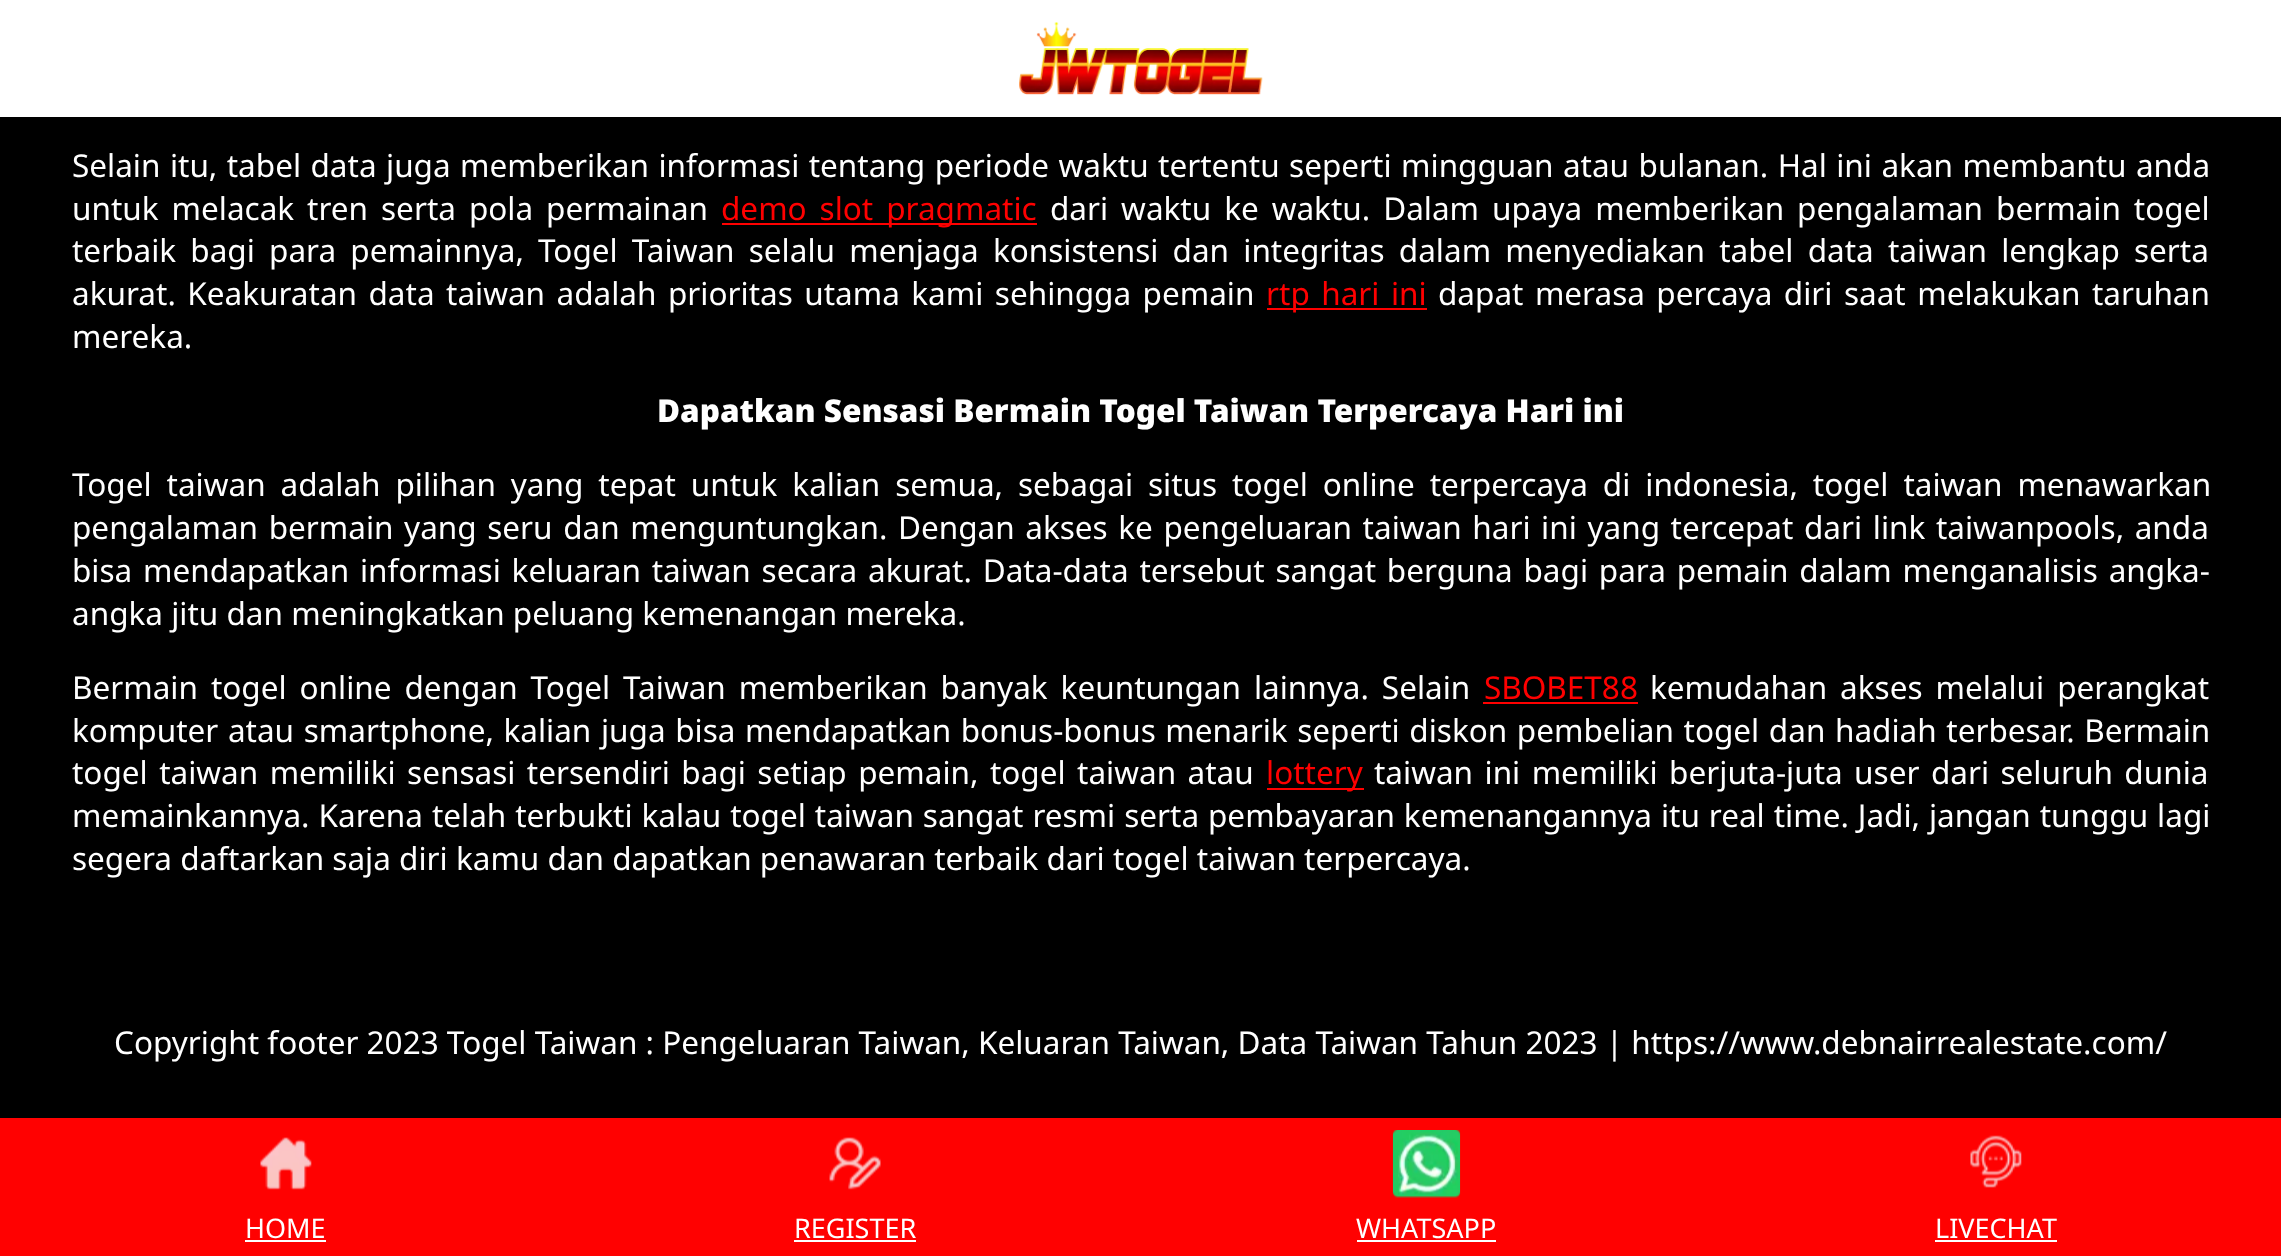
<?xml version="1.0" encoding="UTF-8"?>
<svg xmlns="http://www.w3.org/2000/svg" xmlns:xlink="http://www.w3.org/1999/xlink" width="2281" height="1256">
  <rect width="100%" height="100%" fill="#000000" />
  <rect width="2281" height="117" fill="#ffffff" />
  <image x="1019" y="22" width="244" height="73" xlink:href="image1.png" />
  <rect x="722" y="223" width="315" height="2" fill="#ff0000" />
  <rect x="1267" y="308" width="160" height="2" fill="#ff0000" />
  <rect x="1483" y="702" width="155" height="2" fill="#ff0000" />
  <rect x="1267" y="788" width="97" height="2" fill="#ff0000" />
  <rect y="1118" width="2281" height="138" fill="#ff0101" />
  <image x="260" y="1137" width="52" height="53" xlink:href="image2.png" />
  <rect x="245" y="1240" width="81" height="2" fill="#ffffff" />
  <image x="829" y="1137" width="52" height="53" xlink:href="image3.png" />
  <rect x="794" y="1240" width="122" height="2" fill="#ffffff" />
  <image x="1392" y="1130" width="69" height="68" xlink:href="image4.png" />
  <rect x="1357" y="1240" width="139" height="2" fill="#ffffff" />
  <image x="1970" y="1135" width="52" height="53" xlink:href="image5.png" />
  <rect x="1935" y="1240" width="122" height="2" fill="#ffffff" />
  <text x="72" y="177" word-spacing="1.25" style="font-family: Noto Sans; font-size: 31.5px; fill: #ffffff">Selain itu, tabel data juga memberikan informasi tentang periode waktu tertentu seperti mingguan atau bulanan. Hal ini akan membantu anda</text>
  <text x="72" y="220" word-spacing="4.75" style="font-family: Noto Sans; font-size: 31.5px; fill: #ffffff">untuk melacak tren serta pola permainan</text>
  <text x="721" y="220" word-spacing="4.75" style="font-family: Noto Sans; font-size: 31.5px; fill: #ff0000">demo slot pragmatic</text>
  <text x="1050" y="220" word-spacing="4.75" style="font-family: Noto Sans; font-size: 31.5px; fill: #ffffff">dari waktu ke waktu. Dalam upaya memberikan pengalaman bermain togel</text>
  <text x="72" y="262" word-spacing="6" style="font-family: Noto Sans; font-size: 31.5px; fill: #ffffff">terbaik bagi para pemainnya, Togel Taiwan selalu menjaga konsistensi dan integritas dalam menyediakan tabel data taiwan lengkap serta</text>
  <text x="72" y="305" word-spacing="3.25" style="font-family: Noto Sans; font-size: 31.5px; fill: #ffffff">akurat. Keakuratan data taiwan adalah prioritas utama kami sehingga pemain</text>
  <text x="1266" y="305" word-spacing="3.25" style="font-family: Noto Sans; font-size: 31.5px; fill: #ff0000">rtp hari ini</text>
  <text x="1438" y="305" word-spacing="3.25" style="font-family: Noto Sans; font-size: 31.5px; fill: #ffffff">dapat merasa percaya diri saat melakukan taruhan</text>
  <text x="72" y="348" style="font-family: Noto Sans; font-size: 31.5px; fill: #ffffff">mereka.</text>
  <text x="657" y="422" style="font-family: Noto Sans; font-size: 31.5px; font-weight: 900; fill: #ffffff">Dapatkan Sensasi Bermain Togel Taiwan Terpercaya Hari ini</text>
  <text x="72" y="496" word-spacing="6.75" style="font-family: Noto Sans; font-size: 31.5px; fill: #ffffff">Togel taiwan adalah pilihan yang tepat untuk kalian semua, sebagai situs togel online terpercaya di indonesia, togel taiwan menawarkan</text>
  <text x="72" y="539" word-spacing="2.4" style="font-family: Noto Sans; font-size: 31.5px; fill: #ffffff">pengalaman bermain yang seru dan menguntungkan. Dengan akses ke pengeluaran taiwan hari ini yang tercepat dari link taiwanpools, anda</text>
  <text x="72" y="582" word-spacing="2.6" style="font-family: Noto Sans; font-size: 31.5px; fill: #ffffff">bisa mendapatkan informasi keluaran taiwan secara akurat. Data-data tersebut sangat berguna bagi para pemain dalam menganalisis angka-</text>
  <text x="72" y="625" style="font-family: Noto Sans; font-size: 31.5px; fill: #ffffff">angka jitu dan meningkatkan peluang kemenangan mereka.</text>
  <text x="72" y="699" word-spacing="4.75" style="font-family: Noto Sans; font-size: 31.5px; fill: #ffffff">Bermain togel online dengan Togel Taiwan memberikan banyak keuntungan lainnya. Selain</text>
  <text x="1484" y="699" style="font-family: Noto Sans; font-size: 31.5px; fill: #ff0000">SBOBET88</text>
  <text x="1650" y="699" word-spacing="4.75" style="font-family: Noto Sans; font-size: 31.5px; fill: #ffffff">kemudahan akses melalui perangkat</text>
  <text x="72" y="742" word-spacing="1.4" style="font-family: Noto Sans; font-size: 31.5px; fill: #ffffff">komputer atau smartphone, kalian juga bisa mendapatkan bonus-bonus menarik seperti diskon pembelian togel dan hadiah terbesar. Bermain</text>
  <text x="72" y="784" word-spacing="3.25" style="font-family: Noto Sans; font-size: 31.5px; fill: #ffffff">togel taiwan memiliki sensasi tersendiri bagi setiap pemain, togel taiwan atau</text>
  <text x="1266" y="784" style="font-family: Noto Sans; font-size: 31.5px; fill: #ff0000">lottery</text>
  <text x="1374" y="784" word-spacing="3.25" style="font-family: Noto Sans; font-size: 31.5px; fill: #ffffff">taiwan ini memiliki berjuta-juta user dari seluruh dunia</text>
  <text x="72" y="827" word-spacing="0.75" style="font-family: Noto Sans; font-size: 31.5px; fill: #ffffff">memainkannya. Karena telah terbukti kalau togel taiwan sangat resmi serta pembayaran kemenangannya itu real time. Jadi, jangan tunggu lagi</text>
  <text x="72" y="870" style="font-family: Noto Sans; font-size: 31.5px; fill: #ffffff">segera daftarkan saja diri kamu dan dapatkan penawaran terbaik dari togel taiwan terpercaya.</text>
  <text x="114" y="1054" style="font-family: Noto Sans; font-size: 31.5px; fill: #ffffff">Copyright footer 2023 Togel Taiwan : Pengeluaran Taiwan, Keluaran Taiwan, Data Taiwan Tahun 2023 | https://www.debnairrealestate.com/</text>
  <text x="245" y="1238" style="font-family: Noto Sans; font-size: 27px; fill: #ffffff">HOME</text>
  <text x="794" y="1238" style="font-family: Noto Sans; font-size: 27px; fill: #ffffff">REGISTER</text>
  <text x="1356" y="1238" style="font-family: Noto Sans; font-size: 27px; fill: #ffffff">WHATSAPP</text>
  <text x="1935" y="1238" style="font-family: Noto Sans; font-size: 27px; fill: #ffffff">LIVECHAT</text>
</svg>
